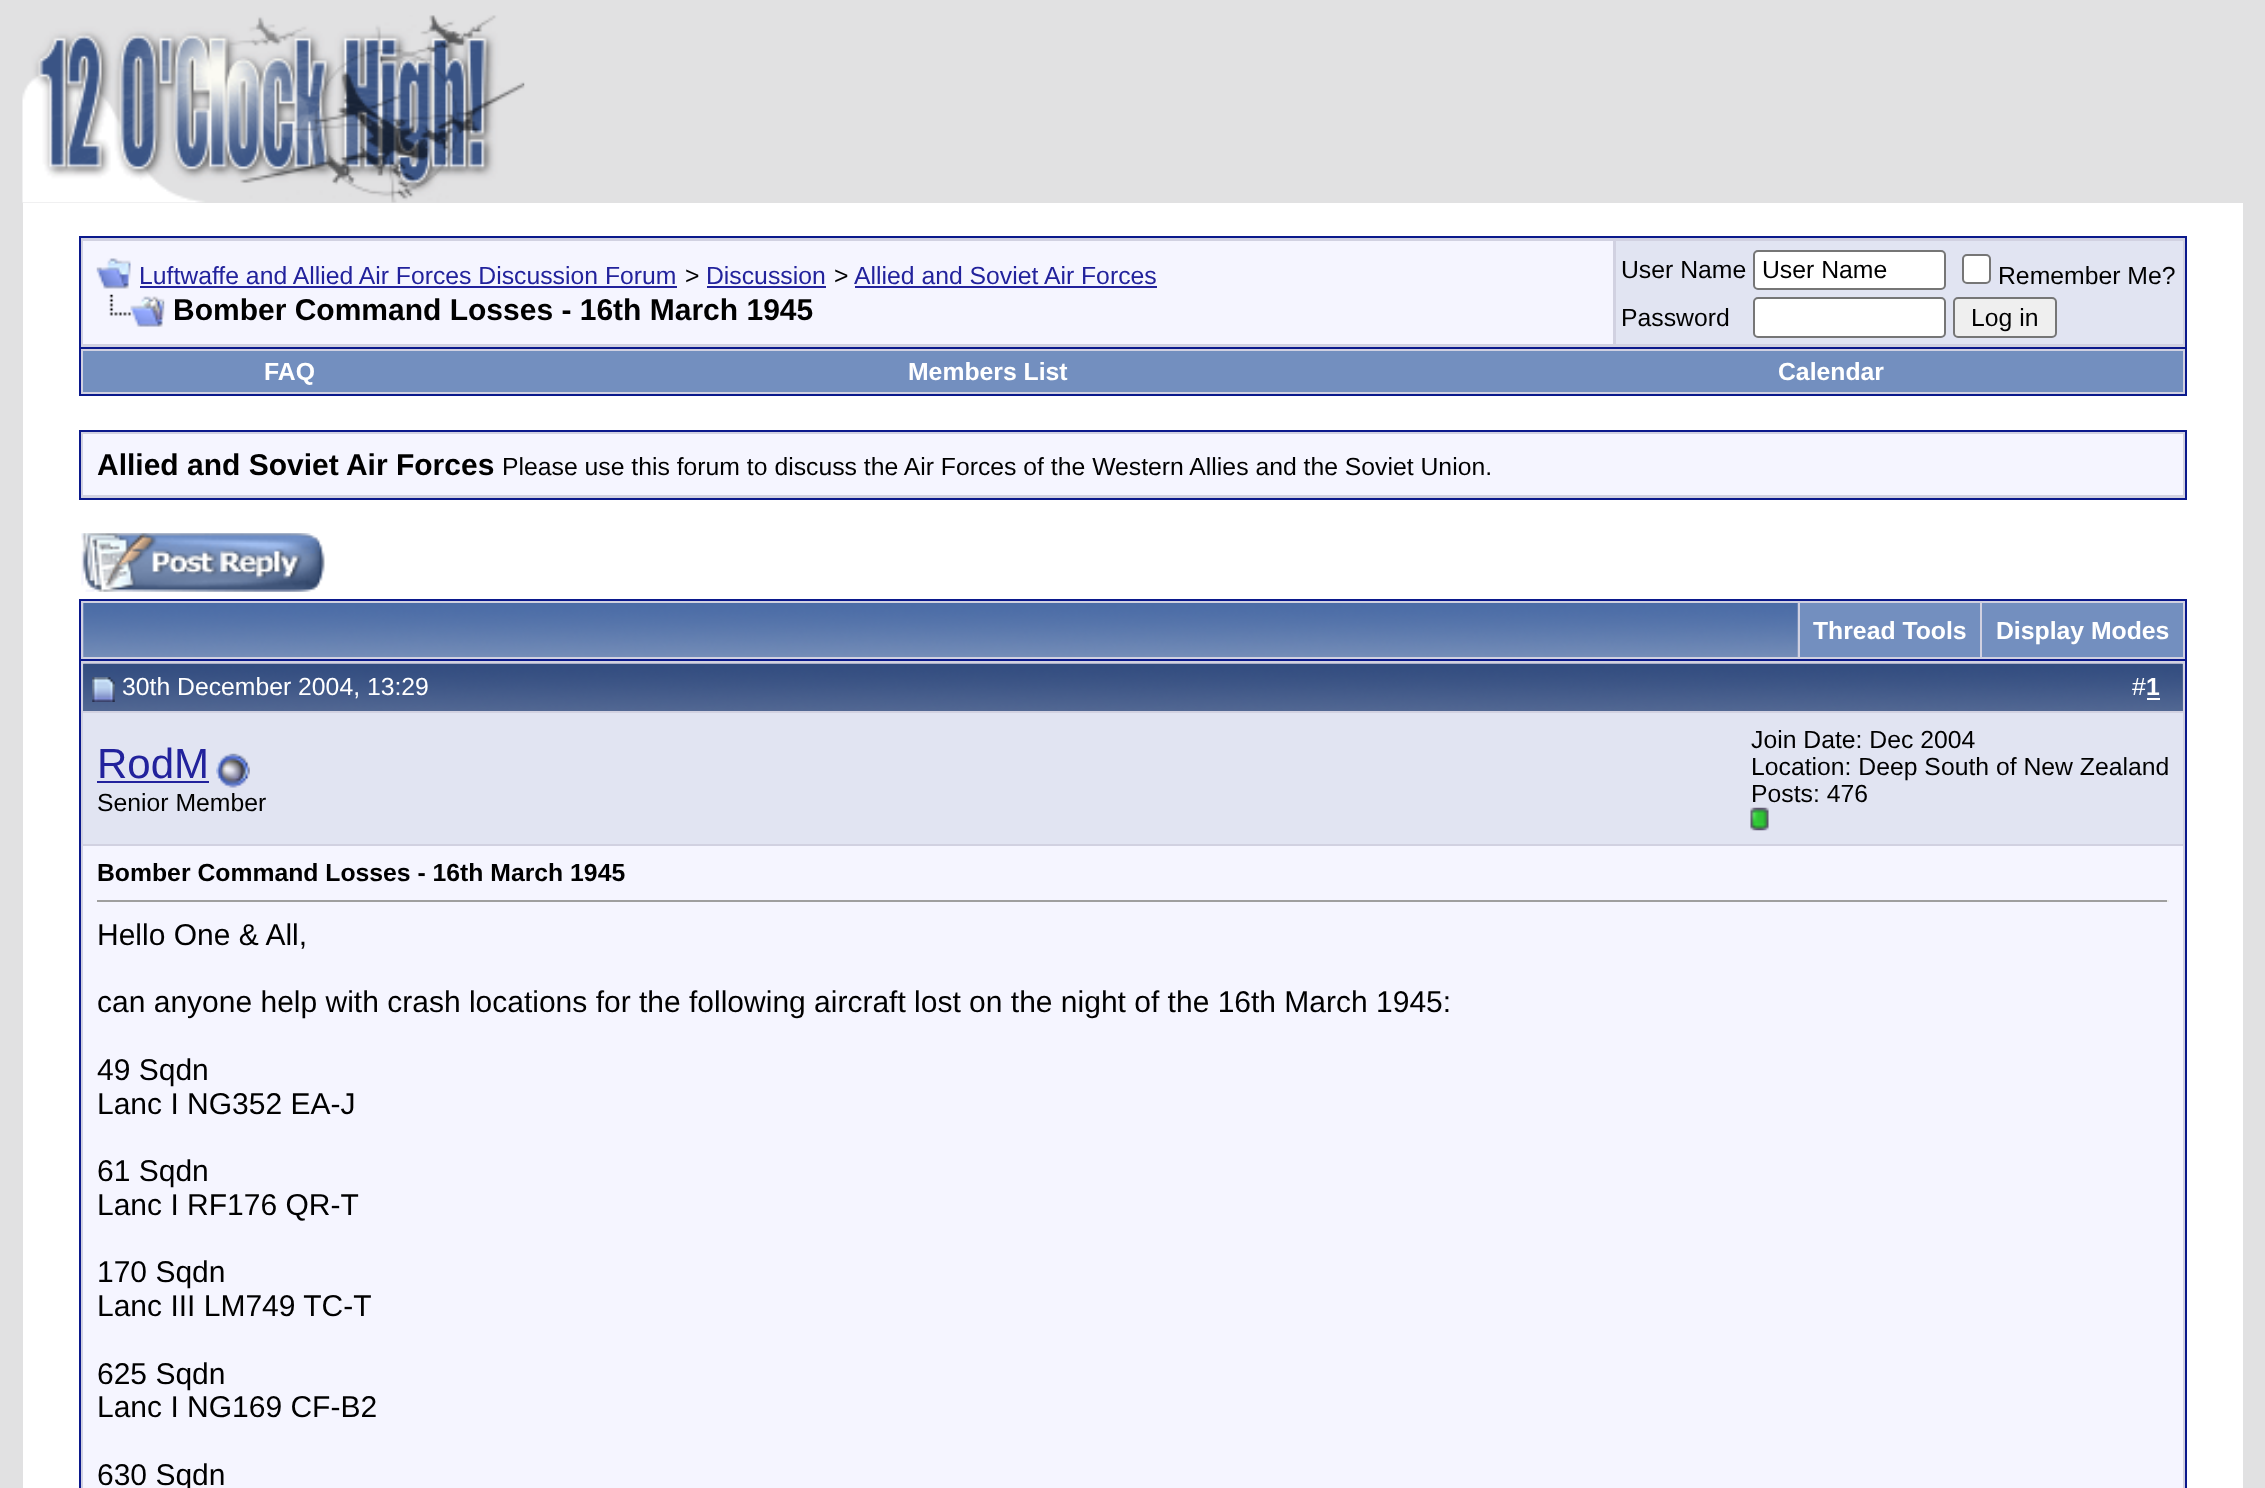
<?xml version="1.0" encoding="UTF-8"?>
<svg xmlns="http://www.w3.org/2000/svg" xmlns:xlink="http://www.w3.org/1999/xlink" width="2265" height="1488">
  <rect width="100%" height="100%" fill="#e1e1e2" />
  <image x="22" y="15" width="503" height="188" xlink:href="image1.png" />
  <rect x="23" y="203" width="2220" height="1285" fill="#ffffff" />
  <rect x="80" y="237" width="2106" height="111" fill="#d1d1e1" stroke="#0b198c" stroke-width="2" />
  <rect x="83" y="241" width="1530" height="103" fill="#f5f5ff" />
  <image x="96" y="258" width="35" height="31" xlink:href="image2.png" />
  <rect x="140" y="286" width="537" height="2" fill="#22229c" />
  <rect x="707" y="286" width="119" height="2" fill="#22229c" />
  <rect x="855" y="286" width="302" height="2" fill="#22229c" />
  <image x="109" y="294" width="56" height="33" xlink:href="image3.png" />
  <rect x="1616" y="241" width="567" height="103" fill="#e1e4f2" />
  <rect x="1754" y="251" width="191" height="38" rx="4" fill="#ffffff" stroke="#767676" stroke-width="2" />
  <rect x="1963" y="255" width="27" height="28" rx="4" fill="#ffffff" stroke="#767676" stroke-width="2" />
  <rect x="1754" y="298" width="191" height="39" rx="4" fill="#ffffff" stroke="#767676" stroke-width="2" />
  <rect x="1954" y="298" width="102" height="39" rx="4" fill="#efefef" stroke="#767676" stroke-width="2" />
  <rect x="81" y="349" width="2104" height="45" fill="#d1d1e1" />
  <rect x="2185" y="349" width="2" height="47" fill="#0b198c" />
  <rect x="79" y="394" width="2108" height="2" fill="#0b198c" />
  <rect x="79" y="349" width="2" height="47" fill="#0b198c" />
  <rect x="83" y="351" width="2100" height="41" fill="#738fbf" />
  <rect x="80" y="431" width="2106" height="68" fill="#d1d1e1" stroke="#0b198c" stroke-width="2" />
  <rect x="83" y="434" width="2100" height="61" fill="#f5f5ff" />
  <image x="81" y="533" width="244" height="59" xlink:href="image4.png" />
  <rect x="81" y="601" width="2104" height="58" fill="#d1d1e1" />
  <rect x="79" y="599" width="2108" height="2" fill="#0b198c" />
  <rect x="2185" y="599" width="2" height="60" fill="#0b198c" />
  <rect x="79" y="599" width="2" height="60" fill="#0b198c" />
  <image x="83" y="603" width="1715" height="54" xlink:href="image5.png" />
  <rect x="1800" y="603" width="180" height="54" fill="#738fbf" />
  <rect x="1982" y="603" width="201" height="54" fill="#738fbf" />
  <rect x="80" y="660" width="2106" height="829" fill="#d1d1e1" stroke="#0b198c" stroke-width="2" />
  <rect x="83" y="664" width="2100" height="47" fill="#5c7099" />
  <image x="83" y="663" width="2100" height="48" xlink:href="image6.png" />
  <image x="92" y="677" width="23" height="25" xlink:href="image7.png" />
  <rect x="2147" y="698" width="13" height="2" fill="#ffffff" />
  <rect x="83" y="713" width="2100" height="131" fill="#e1e4f2" />
  <rect x="97" y="781" width="112" height="2" fill="#22229c" />
  <image x="216" y="753" width="34" height="35" xlink:href="image8.png" />
  <image x="1750" y="807" width="19" height="24" xlink:href="image9.png" />
  <rect x="83" y="846" width="2100" height="642" fill="#f5f5ff" />
  <rect x="97" y="900" width="2072" height="2" fill="#9f9f9f" />
  <rect x="2167" y="900" width="2" height="2" fill="#eeeeee" />
  <text x="139" y="284" style="font-family: Liberation Sans; font-size: 24.75px; fill: #22229c">Luftwaffe and Allied Air Forces Discussion Forum</text>
  <text x="685" y="284" style="font-family: Liberation Sans; font-size: 24.75px; fill: #000000">&gt;</text>
  <text x="706" y="284" style="font-family: Liberation Sans; font-size: 24.75px; fill: #22229c">Discussion</text>
  <text x="834" y="284" style="font-family: Liberation Sans; font-size: 24.75px; fill: #000000">&gt;</text>
  <text x="854" y="284" style="font-family: Liberation Sans; font-size: 24.75px; fill: #22229c">Allied and Soviet Air Forces</text>
  <text x="173" y="320" style="font-family: Liberation Sans; font-size: 30px; font-weight: bold; fill: #000000">Bomber Command Losses - 16th March 1945</text>
  <text x="1621" y="278" style="font-family: Liberation Sans; font-size: 24.75px; fill: #000000">User Name</text>
  <text x="1762" y="278" style="font-family: Liberation Sans; font-size: 24.75px; fill: #000000">User Name</text>
  <text x="1998" y="284" style="font-family: Liberation Sans; font-size: 24.75px; fill: #000000">Remember Me?</text>
  <text x="1621" y="326" style="font-family: Liberation Sans; font-size: 24.75px; fill: #000000">Password</text>
  <text x="1971" y="326" style="font-family: Liberation Sans; font-size: 24.75px; fill: #000000">Log in</text>
  <text x="264" y="380" style="font-family: Liberation Sans; font-size: 24.75px; font-weight: bold; fill: #ffffff">FAQ</text>
  <text x="908" y="380" style="font-family: Liberation Sans; font-size: 24.75px; font-weight: bold; fill: #ffffff">Members List</text>
  <text x="1778" y="380" style="font-family: Liberation Sans; font-size: 24.75px; font-weight: bold; fill: #ffffff">Calendar</text>
  <text x="97" y="475" style="font-family: Liberation Sans; font-size: 30px; font-weight: bold; fill: #000000">Allied and Soviet Air Forces</text>
  <text x="502" y="475" style="font-family: Liberation Sans; font-size: 24.75px; fill: #000000">Please use this forum to discuss the Air Forces of the Western Allies and the Soviet Union.</text>
  <text x="1813" y="639" style="font-family: Liberation Sans; font-size: 24.75px; font-weight: bold; fill: #ffffff">Thread Tools</text>
  <text x="1996" y="639" style="font-family: Liberation Sans; font-size: 24.75px; font-weight: bold; fill: #ffffff">Display Modes</text>
  <text x="122" y="695" style="font-family: Liberation Sans; font-size: 24.75px; fill: #ffffff">30th December 2004, 13:29</text>
  <text x="2132" y="695" style="font-family: Liberation Sans; font-size: 24.75px; fill: #ffffff">#</text>
  <text x="2146" y="695" style="font-family: Liberation Sans; font-size: 24.75px; font-weight: bold; fill: #ffffff">1</text>
  <text x="97" y="778" style="font-family: Liberation Sans; font-size: 42px; fill: #22229c">RodM</text>
  <text x="97" y="811" style="font-family: Liberation Sans; font-size: 24.75px; fill: #000000">Senior Member</text>
  <text x="1751" y="748" style="font-family: Liberation Sans; font-size: 24.75px; fill: #000000">Join Date: Dec 2004</text>
  <text x="1751" y="775" style="font-family: Liberation Sans; font-size: 24.75px; fill: #000000">Location: Deep South of New Zealand</text>
  <text x="1751" y="802" style="font-family: Liberation Sans; font-size: 24.75px; fill: #000000">Posts: 476</text>
  <text x="97" y="881" style="font-family: Liberation Sans; font-size: 24.75px; font-weight: bold; fill: #000000">Bomber Command Losses - 16th March 1945</text>
  <text x="97" y="945" style="font-family: Liberation Sans; font-size: 30px; fill: #000000">Hello One &amp; All,</text>
  <text x="97" y="1012" style="font-family: Liberation Sans; font-size: 30px; fill: #000000">can anyone help with crash locations for the following aircraft lost on the night of the 16th March 1945:</text>
  <text x="97" y="1080" style="font-family: Liberation Sans; font-size: 30px; fill: #000000">49 Sqdn</text>
  <text x="97" y="1114" style="font-family: Liberation Sans; font-size: 30px; fill: #000000">Lanc I NG352 EA-J</text>
  <text x="97" y="1181" style="font-family: Liberation Sans; font-size: 30px; fill: #000000">61 Sqdn</text>
  <text x="97" y="1215" style="font-family: Liberation Sans; font-size: 30px; fill: #000000">Lanc I RF176 QR-T</text>
  <text x="97" y="1282" style="font-family: Liberation Sans; font-size: 30px; fill: #000000">170 Sqdn</text>
  <text x="97" y="1316" style="font-family: Liberation Sans; font-size: 30px; fill: #000000">Lanc III LM749 TC-T</text>
  <text x="97" y="1384" style="font-family: Liberation Sans; font-size: 30px; fill: #000000">625 Sqdn</text>
  <text x="97" y="1417" style="font-family: Liberation Sans; font-size: 30px; fill: #000000">Lanc I NG169 CF-B2</text>
  <text x="97" y="1485" style="font-family: Liberation Sans; font-size: 30px; fill: #000000">630 Sqdn</text>
</svg>
